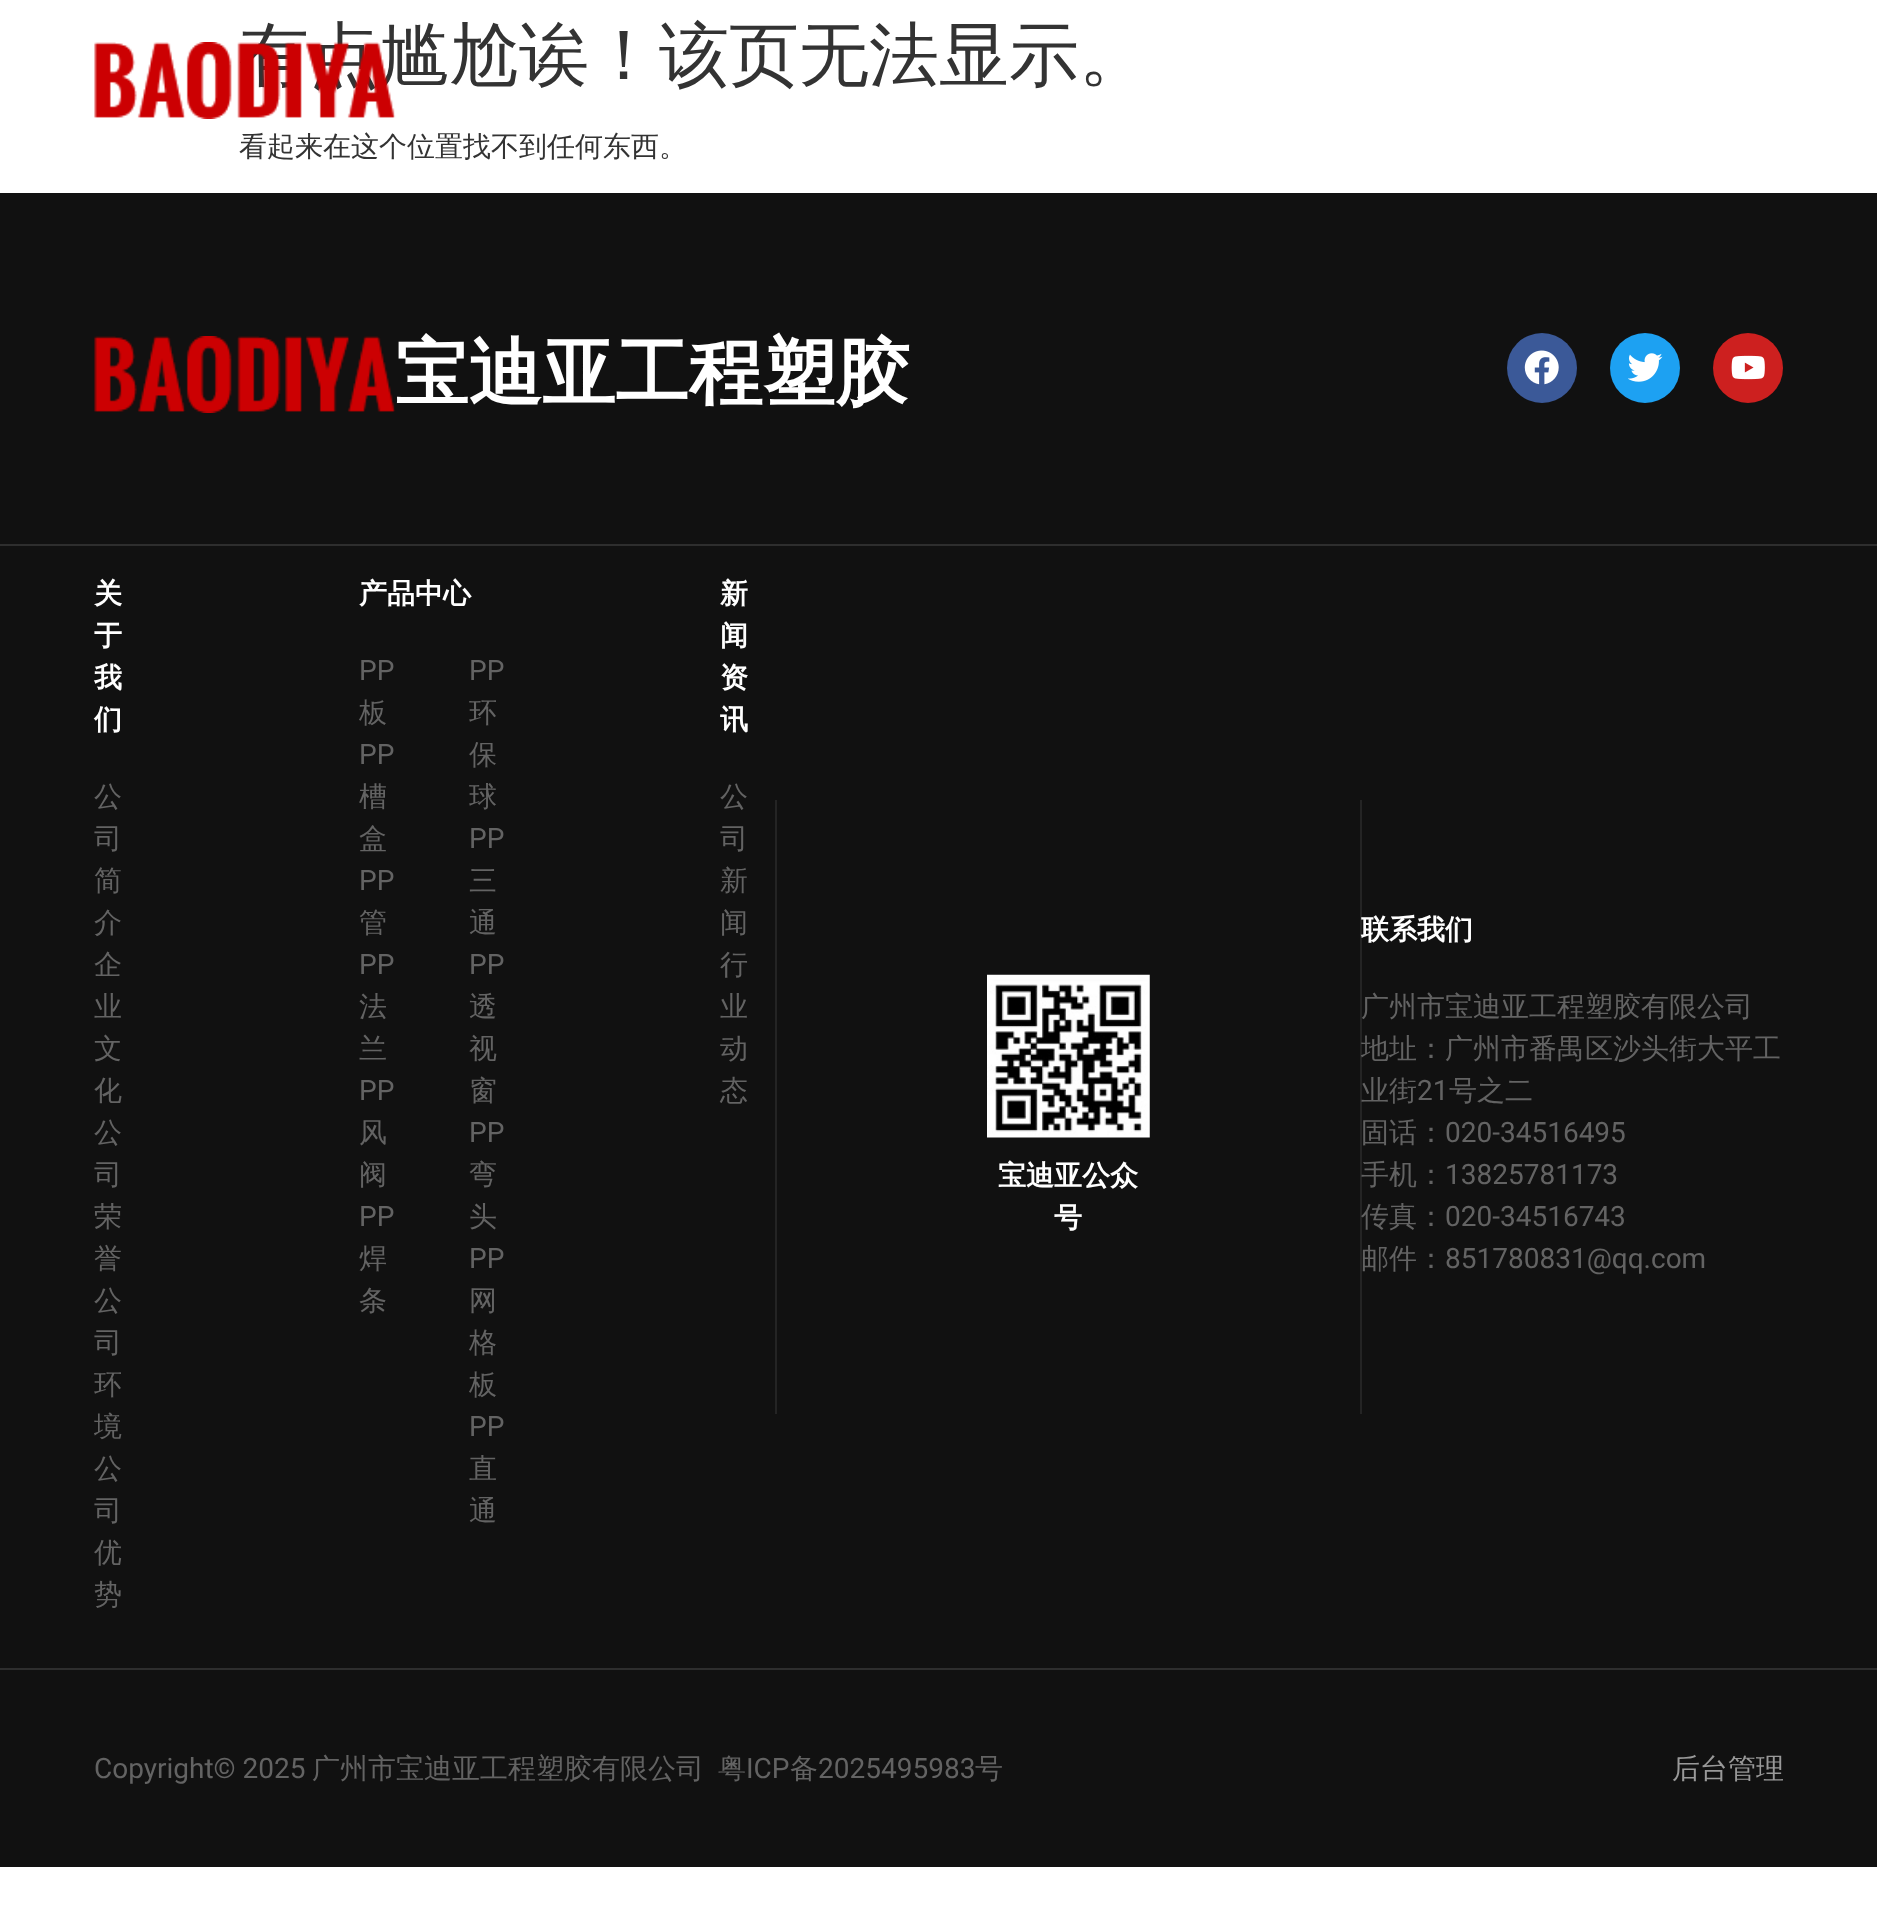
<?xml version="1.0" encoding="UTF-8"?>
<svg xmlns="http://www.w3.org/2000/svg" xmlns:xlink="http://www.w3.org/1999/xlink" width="1877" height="1918">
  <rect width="100%" height="100%" fill="#ffffff" />
  <rect y="193" width="1877" height="1674" fill="#111111" />
  <image x="94" y="336" width="302" height="77" xlink:href="image2.png" />
  <circle cx="1542" cy="368" r="35" fill="#3b5998" />
  <image x="1524" y="350" width="35" height="35" xlink:href="image3.png" />
  <circle cx="1645" cy="368" r="35" fill="#1da1f2" />
  <image x="1628" y="353" width="35" height="29" xlink:href="image4.png" />
  <circle cx="1748" cy="368" r="35" fill="#cd201f" />
  <image x="1731" y="355" width="34" height="25" xlink:href="image5.png" />
  <rect y="544" width="1877" height="2" fill="#2e2e2e" />
  <rect x="1360" y="800" width="2" height="614" fill="#242424" />
  <rect x="775" y="800" width="2" height="614" fill="#242424" />
  <image x="987" y="974" width="163" height="164" xlink:href="image6.png" />
  <rect y="1668" width="1877" height="2" fill="#2e2e2e" />
  <text x="239" y="79" style="font-family: WenQuanYi Zen Hei; font-size: 70px; font-weight: 500; fill: #333333">有点尴尬诶！该页无法显示。</text>
  <text x="239" y="156" style="font-family: WenQuanYi Zen Hei; font-size: 28px; font-weight: 500; fill: #333333">看起来在这个位置找不到任何东西。</text>
  <image x="94" y="42" width="302" height="77" xlink:href="image1.png" />
  <text x="395" y="398" style="font-family: WenQuanYi Zen Hei; font-size: 73.5px; font-weight: bold; fill: #ffffff">宝迪亚工程塑胶</text>
  <text x="94" y="603" style="font-family: WenQuanYi Zen Hei; font-size: 28px; font-weight: bold; fill: #ffffff">关</text>
  <text x="94" y="645" style="font-family: WenQuanYi Zen Hei; font-size: 28px; font-weight: bold; fill: #ffffff">于</text>
  <text x="94" y="687" style="font-family: WenQuanYi Zen Hei; font-size: 28px; font-weight: bold; fill: #ffffff">我</text>
  <text x="94" y="729" style="font-family: WenQuanYi Zen Hei; font-size: 28px; font-weight: bold; fill: #ffffff">们</text>
  <text x="94" y="806" style="font-family: WenQuanYi Zen Hei; font-size: 28px; font-weight: 500; fill: #636363">公</text>
  <text x="94" y="848" style="font-family: WenQuanYi Zen Hei; font-size: 28px; font-weight: 500; fill: #636363">司</text>
  <text x="94" y="890" style="font-family: WenQuanYi Zen Hei; font-size: 28px; font-weight: 500; fill: #636363">简</text>
  <text x="94" y="932" style="font-family: WenQuanYi Zen Hei; font-size: 28px; font-weight: 500; fill: #636363">介</text>
  <text x="94" y="974" style="font-family: WenQuanYi Zen Hei; font-size: 28px; font-weight: 500; fill: #636363">企</text>
  <text x="94" y="1016" style="font-family: WenQuanYi Zen Hei; font-size: 28px; font-weight: 500; fill: #636363">业</text>
  <text x="94" y="1058" style="font-family: WenQuanYi Zen Hei; font-size: 28px; font-weight: 500; fill: #636363">文</text>
  <text x="94" y="1100" style="font-family: WenQuanYi Zen Hei; font-size: 28px; font-weight: 500; fill: #636363">化</text>
  <text x="94" y="1142" style="font-family: WenQuanYi Zen Hei; font-size: 28px; font-weight: 500; fill: #636363">公</text>
  <text x="94" y="1184" style="font-family: WenQuanYi Zen Hei; font-size: 28px; font-weight: 500; fill: #636363">司</text>
  <text x="94" y="1226" style="font-family: WenQuanYi Zen Hei; font-size: 28px; font-weight: 500; fill: #636363">荣</text>
  <text x="94" y="1268" style="font-family: WenQuanYi Zen Hei; font-size: 28px; font-weight: 500; fill: #636363">誉</text>
  <text x="94" y="1310" style="font-family: WenQuanYi Zen Hei; font-size: 28px; font-weight: 500; fill: #636363">公</text>
  <text x="94" y="1352" style="font-family: WenQuanYi Zen Hei; font-size: 28px; font-weight: 500; fill: #636363">司</text>
  <text x="94" y="1394" style="font-family: WenQuanYi Zen Hei; font-size: 28px; font-weight: 500; fill: #636363">环</text>
  <text x="94" y="1436" style="font-family: WenQuanYi Zen Hei; font-size: 28px; font-weight: 500; fill: #636363">境</text>
  <text x="94" y="1478" style="font-family: WenQuanYi Zen Hei; font-size: 28px; font-weight: 500; fill: #636363">公</text>
  <text x="94" y="1520" style="font-family: WenQuanYi Zen Hei; font-size: 28px; font-weight: 500; fill: #636363">司</text>
  <text x="94" y="1562" style="font-family: WenQuanYi Zen Hei; font-size: 28px; font-weight: 500; fill: #636363">优</text>
  <text x="94" y="1604" style="font-family: WenQuanYi Zen Hei; font-size: 28px; font-weight: 500; fill: #636363">势</text>
  <text x="359" y="603" style="font-family: WenQuanYi Zen Hei; font-size: 28px; font-weight: bold; fill: #ffffff">产品中心</text>
  <text x="359" y="680" style="font-family: Roboto; font-size: 28px; fill: #636363">PP</text>
  <text x="359" y="722" style="font-family: WenQuanYi Zen Hei; font-size: 28px; font-weight: 500; fill: #636363">板</text>
  <text x="359" y="764" style="font-family: Roboto; font-size: 28px; fill: #636363">PP</text>
  <text x="359" y="806" style="font-family: WenQuanYi Zen Hei; font-size: 28px; font-weight: 500; fill: #636363">槽</text>
  <text x="359" y="848" style="font-family: WenQuanYi Zen Hei; font-size: 28px; font-weight: 500; fill: #636363">盒</text>
  <text x="359" y="890" style="font-family: Roboto; font-size: 28px; fill: #636363">PP</text>
  <text x="359" y="932" style="font-family: WenQuanYi Zen Hei; font-size: 28px; font-weight: 500; fill: #636363">管</text>
  <text x="359" y="974" style="font-family: Roboto; font-size: 28px; fill: #636363">PP</text>
  <text x="359" y="1016" style="font-family: WenQuanYi Zen Hei; font-size: 28px; font-weight: 500; fill: #636363">法</text>
  <text x="359" y="1058" style="font-family: WenQuanYi Zen Hei; font-size: 28px; font-weight: 500; fill: #636363">兰</text>
  <text x="359" y="1100" style="font-family: Roboto; font-size: 28px; fill: #636363">PP</text>
  <text x="359" y="1142" style="font-family: WenQuanYi Zen Hei; font-size: 28px; font-weight: 500; fill: #636363">风</text>
  <text x="359" y="1184" style="font-family: WenQuanYi Zen Hei; font-size: 28px; font-weight: 500; fill: #636363">阀</text>
  <text x="359" y="1226" style="font-family: Roboto; font-size: 28px; fill: #636363">PP</text>
  <text x="359" y="1268" style="font-family: WenQuanYi Zen Hei; font-size: 28px; font-weight: 500; fill: #636363">焊</text>
  <text x="359" y="1310" style="font-family: WenQuanYi Zen Hei; font-size: 28px; font-weight: 500; fill: #636363">条</text>
  <text x="469" y="680" style="font-family: Roboto; font-size: 28px; fill: #636363">PP</text>
  <text x="469" y="722" style="font-family: WenQuanYi Zen Hei; font-size: 28px; font-weight: 500; fill: #636363">环</text>
  <text x="469" y="764" style="font-family: WenQuanYi Zen Hei; font-size: 28px; font-weight: 500; fill: #636363">保</text>
  <text x="469" y="806" style="font-family: WenQuanYi Zen Hei; font-size: 28px; font-weight: 500; fill: #636363">球</text>
  <text x="469" y="848" style="font-family: Roboto; font-size: 28px; fill: #636363">PP</text>
  <text x="469" y="890" style="font-family: WenQuanYi Zen Hei; font-size: 28px; font-weight: 500; fill: #636363">三</text>
  <text x="469" y="932" style="font-family: WenQuanYi Zen Hei; font-size: 28px; font-weight: 500; fill: #636363">通</text>
  <text x="469" y="974" style="font-family: Roboto; font-size: 28px; fill: #636363">PP</text>
  <text x="469" y="1016" style="font-family: WenQuanYi Zen Hei; font-size: 28px; font-weight: 500; fill: #636363">透</text>
  <text x="469" y="1058" style="font-family: WenQuanYi Zen Hei; font-size: 28px; font-weight: 500; fill: #636363">视</text>
  <text x="469" y="1100" style="font-family: WenQuanYi Zen Hei; font-size: 28px; font-weight: 500; fill: #636363">窗</text>
  <text x="469" y="1142" style="font-family: Roboto; font-size: 28px; fill: #636363">PP</text>
  <text x="469" y="1184" style="font-family: WenQuanYi Zen Hei; font-size: 28px; font-weight: 500; fill: #636363">弯</text>
  <text x="469" y="1226" style="font-family: WenQuanYi Zen Hei; font-size: 28px; font-weight: 500; fill: #636363">头</text>
  <text x="469" y="1268" style="font-family: Roboto; font-size: 28px; fill: #636363">PP</text>
  <text x="469" y="1310" style="font-family: WenQuanYi Zen Hei; font-size: 28px; font-weight: 500; fill: #636363">网</text>
  <text x="469" y="1352" style="font-family: WenQuanYi Zen Hei; font-size: 28px; font-weight: 500; fill: #636363">格</text>
  <text x="469" y="1394" style="font-family: WenQuanYi Zen Hei; font-size: 28px; font-weight: 500; fill: #636363">板</text>
  <text x="469" y="1436" style="font-family: Roboto; font-size: 28px; fill: #636363">PP</text>
  <text x="469" y="1478" style="font-family: WenQuanYi Zen Hei; font-size: 28px; font-weight: 500; fill: #636363">直</text>
  <text x="469" y="1520" style="font-family: WenQuanYi Zen Hei; font-size: 28px; font-weight: 500; fill: #636363">通</text>
  <text x="720" y="603" style="font-family: WenQuanYi Zen Hei; font-size: 28px; font-weight: bold; fill: #ffffff">新</text>
  <text x="720" y="645" style="font-family: WenQuanYi Zen Hei; font-size: 28px; font-weight: bold; fill: #ffffff">闻</text>
  <text x="720" y="687" style="font-family: WenQuanYi Zen Hei; font-size: 28px; font-weight: bold; fill: #ffffff">资</text>
  <text x="720" y="729" style="font-family: WenQuanYi Zen Hei; font-size: 28px; font-weight: bold; fill: #ffffff">讯</text>
  <text x="720" y="806" style="font-family: WenQuanYi Zen Hei; font-size: 28px; font-weight: 500; fill: #636363">公</text>
  <text x="720" y="848" style="font-family: WenQuanYi Zen Hei; font-size: 28px; font-weight: 500; fill: #636363">司</text>
  <text x="720" y="890" style="font-family: WenQuanYi Zen Hei; font-size: 28px; font-weight: 500; fill: #636363">新</text>
  <text x="720" y="932" style="font-family: WenQuanYi Zen Hei; font-size: 28px; font-weight: 500; fill: #636363">闻</text>
  <text x="720" y="974" style="font-family: WenQuanYi Zen Hei; font-size: 28px; font-weight: 500; fill: #636363">行</text>
  <text x="720" y="1016" style="font-family: WenQuanYi Zen Hei; font-size: 28px; font-weight: 500; fill: #636363">业</text>
  <text x="720" y="1058" style="font-family: WenQuanYi Zen Hei; font-size: 28px; font-weight: 500; fill: #636363">动</text>
  <text x="720" y="1100" style="font-family: WenQuanYi Zen Hei; font-size: 28px; font-weight: 500; fill: #636363">态</text>
  <text x="998" y="1185" style="font-family: WenQuanYi Zen Hei; font-size: 28px; font-weight: bold; fill: #ffffff">宝迪亚公众</text>
  <text x="1054" y="1227" style="font-family: WenQuanYi Zen Hei; font-size: 28px; font-weight: bold; fill: #ffffff">号</text>
  <text x="1361" y="939" style="font-family: WenQuanYi Zen Hei; font-size: 28px; font-weight: bold; fill: #ffffff">联系我们</text>
  <text x="1361" y="1016" style="font-family: WenQuanYi Zen Hei; font-size: 28px; font-weight: 500; fill: #636363">广州市宝迪亚工程塑胶有限公司</text>
  <text x="1361" y="1058" style="font-family: WenQuanYi Zen Hei; font-size: 28px; font-weight: 500; fill: #636363">地址：广州市番禺区沙头街大平工</text>
  <text x="1361" y="1100" style="font-family: WenQuanYi Zen Hei; font-size: 28px; font-weight: 500; fill: #636363">业街</text>
  <text x="1417" y="1100" style="font-family: Roboto; font-size: 28px; fill: #636363">21</text>
  <text x="1449" y="1100" style="font-family: WenQuanYi Zen Hei; font-size: 28px; font-weight: 500; fill: #636363">号之二</text>
  <text x="1361" y="1142" style="font-family: WenQuanYi Zen Hei; font-size: 28px; font-weight: 500; fill: #636363">固话：</text>
  <text x="1445" y="1142" style="font-family: Roboto; font-size: 28px; fill: #636363">020-34516495</text>
  <text x="1361" y="1184" style="font-family: WenQuanYi Zen Hei; font-size: 28px; font-weight: 500; fill: #636363">手机：</text>
  <text x="1445" y="1184" style="font-family: Roboto; font-size: 28px; fill: #636363">13825781173</text>
  <text x="1361" y="1226" style="font-family: WenQuanYi Zen Hei; font-size: 28px; font-weight: 500; fill: #636363">传真：</text>
  <text x="1445" y="1226" style="font-family: Roboto; font-size: 28px; fill: #636363">020-34516743</text>
  <text x="1361" y="1268" style="font-family: WenQuanYi Zen Hei; font-size: 28px; font-weight: 500; fill: #636363">邮件：</text>
  <text x="1445" y="1268" style="font-family: Roboto; font-size: 28px; fill: #636363">851780831@qq.com</text>
  <text x="94" y="1778" style="font-family: Roboto; font-size: 28px; fill: #636363">Copyright© 2025</text>
  <text x="312" y="1778" style="font-family: WenQuanYi Zen Hei; font-size: 28px; font-weight: 500; fill: #636363">广州市宝迪亚工程塑胶有限公司</text>
  <text x="718" y="1778" style="font-family: WenQuanYi Zen Hei; font-size: 28px; font-weight: 500; fill: #636363">粤</text>
  <text x="746" y="1778" style="font-family: Roboto; font-size: 28px; fill: #636363">ICP</text>
  <text x="790" y="1778" style="font-family: WenQuanYi Zen Hei; font-size: 28px; font-weight: 500; fill: #636363">备</text>
  <text x="818" y="1778" style="font-family: Roboto; font-size: 28px; fill: #636363">2025495983</text>
  <text x="975" y="1778" style="font-family: WenQuanYi Zen Hei; font-size: 28px; font-weight: 500; fill: #636363">号</text>
  <text x="1672" y="1778" style="font-family: WenQuanYi Zen Hei; font-size: 28px; font-weight: 500; fill: #999999">后台管理</text>
</svg>
